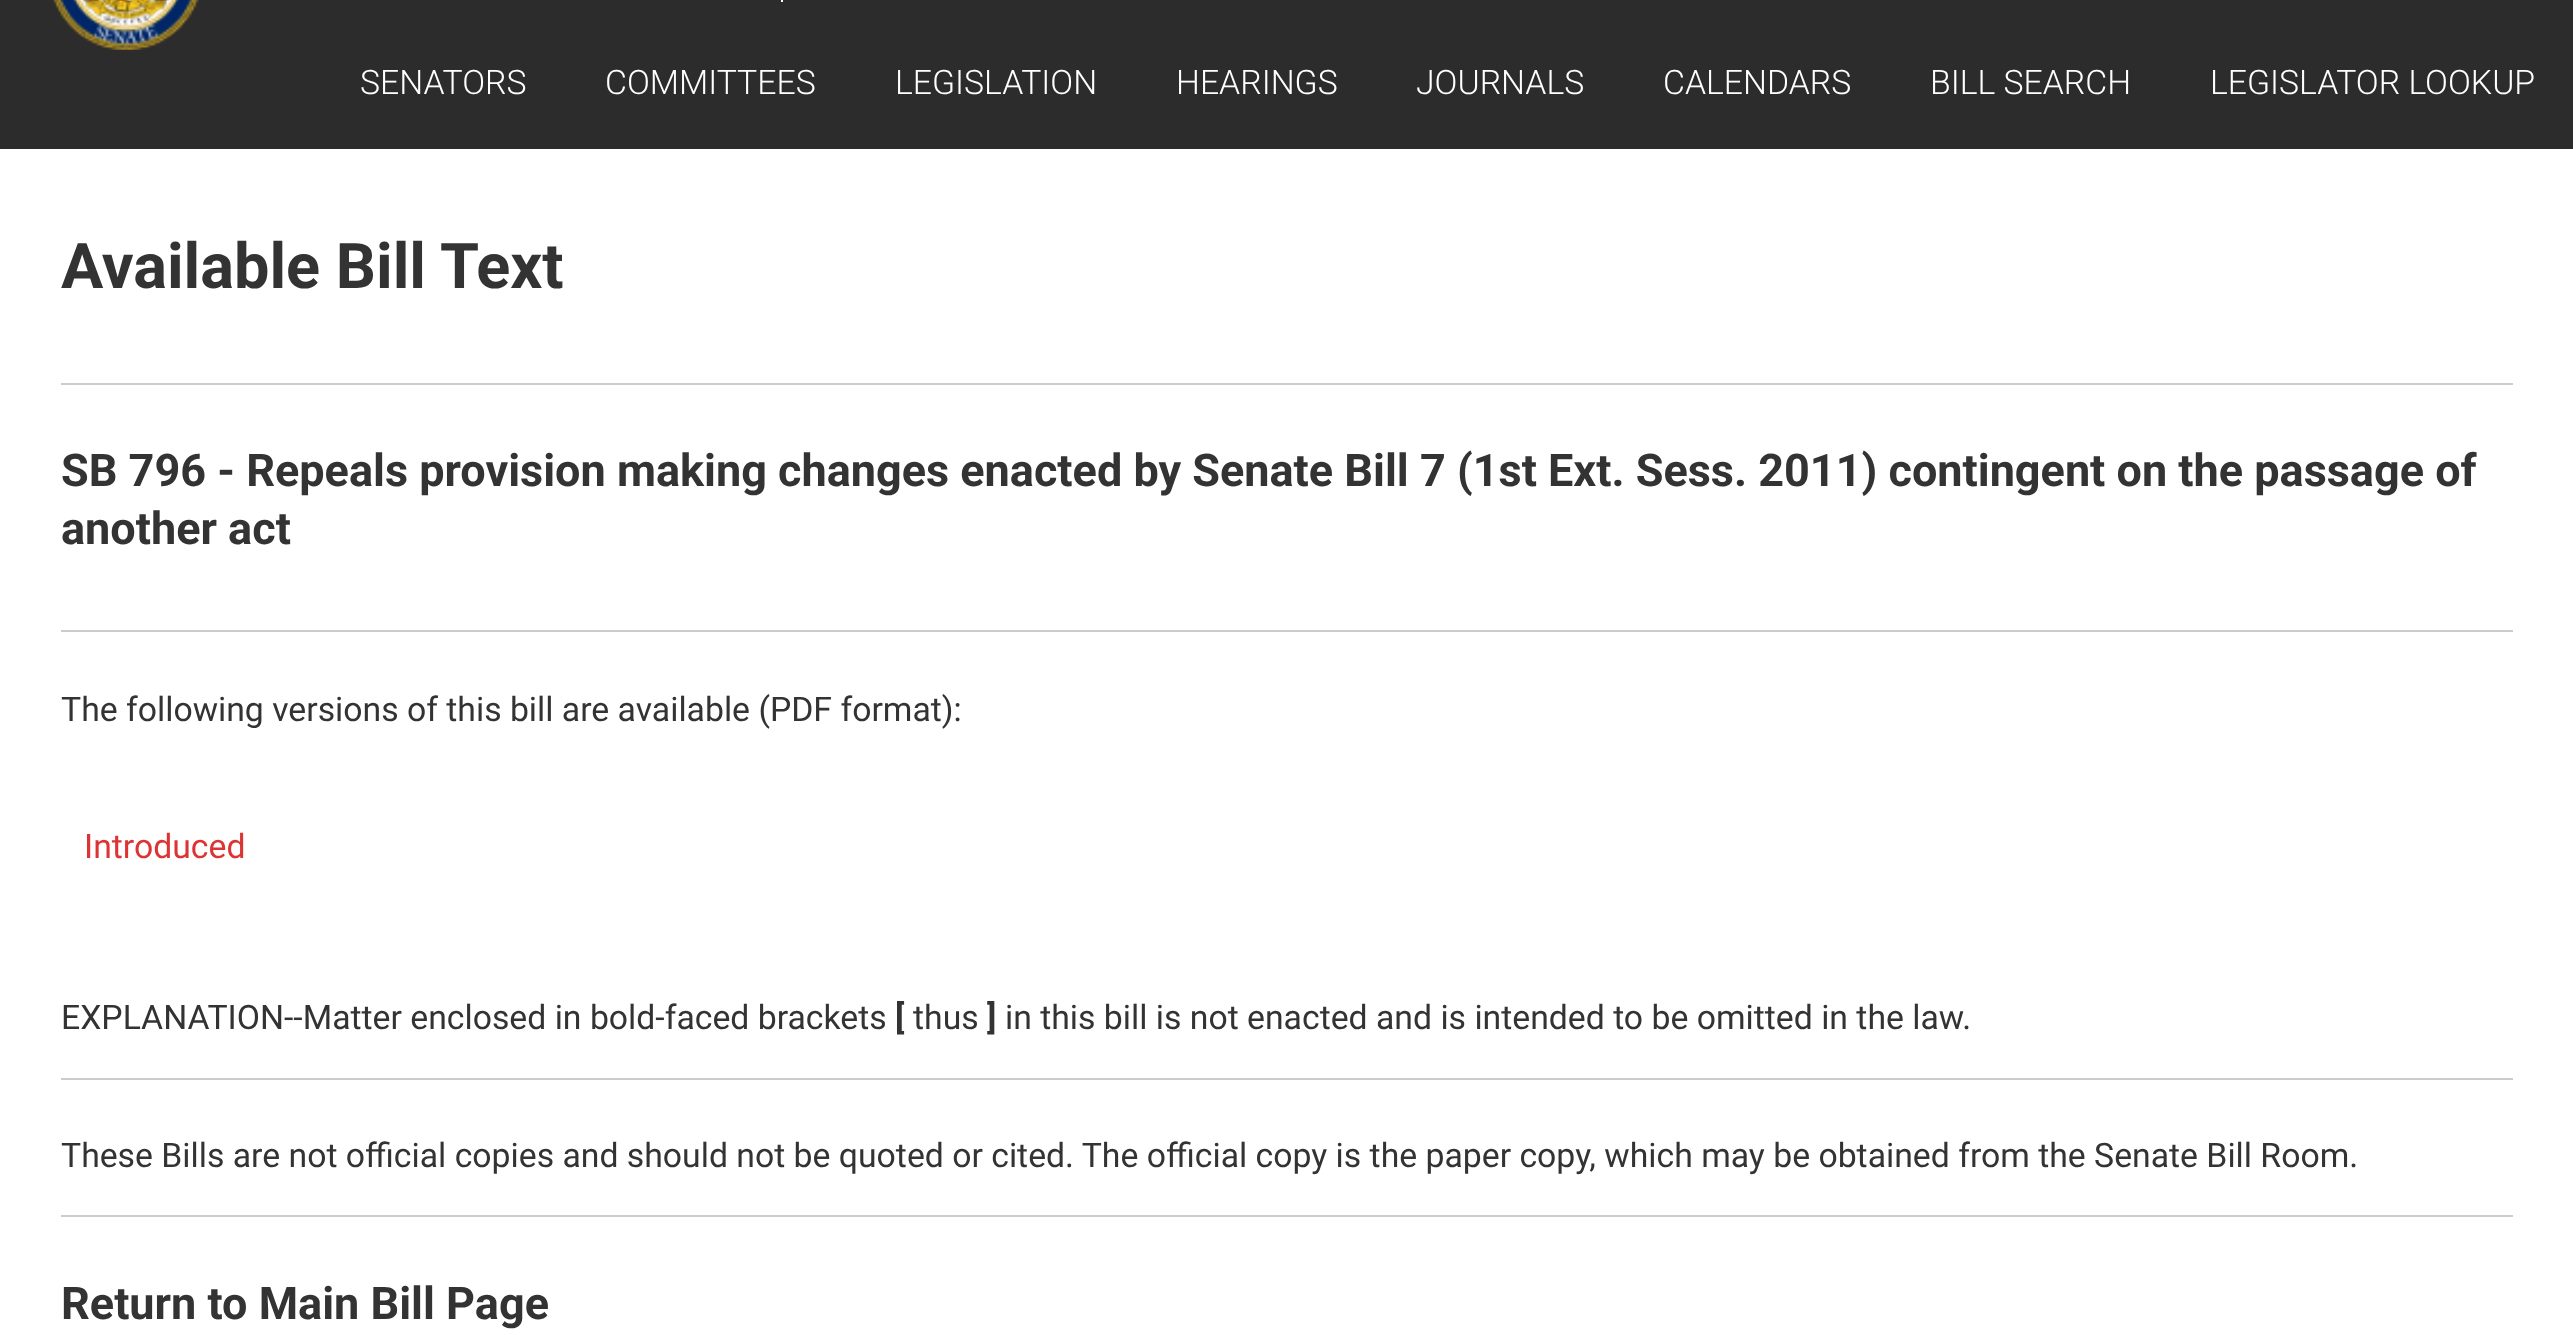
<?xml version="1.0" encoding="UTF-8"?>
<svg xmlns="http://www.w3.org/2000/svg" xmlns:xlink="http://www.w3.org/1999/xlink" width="2573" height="1335">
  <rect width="100%" height="100%" fill="#ffffff" />
  <rect width="2573" height="149" fill="#2c2c2c" />
  <image x="53" y="0" width="146" height="50" xlink:href="image1.png" />
  <rect x="781" width="2" height="2" fill="#ffffff" />
  <rect x="61" y="383" width="2452" height="2" fill="#cccccc" />
  <rect x="61" y="630" width="2452" height="2" fill="#cccccc" />
  <rect x="61" y="1078" width="2452" height="2" fill="#cccccc" />
  <rect x="61" y="1215" width="2452" height="2" fill="#cccccc" />
  <text x="360" y="94" style="font-family: Roboto; font-size: 33.75px; font-weight: 300; fill: #ffffff">SENATORS</text>
  <text x="605" y="94" style="font-family: Roboto; font-size: 33.75px; font-weight: 300; fill: #ffffff">COMMITTEES</text>
  <text x="895" y="94" style="font-family: Roboto; font-size: 33.75px; font-weight: 300; fill: #ffffff">LEGISLATION</text>
  <text x="1176" y="94" style="font-family: Roboto; font-size: 33.75px; font-weight: 300; fill: #ffffff">HEARINGS</text>
  <text x="1416" y="94" style="font-family: Roboto; font-size: 33.75px; font-weight: 300; fill: #ffffff">JOURNALS</text>
  <text x="1663" y="94" style="font-family: Roboto; font-size: 33.75px; font-weight: 300; fill: #ffffff">CALENDARS</text>
  <text x="1930" y="94" style="font-family: Roboto; font-size: 33.75px; font-weight: 300; fill: #ffffff">BILL SEARCH</text>
  <text x="2210" y="94" style="font-family: Roboto; font-size: 33.75px; font-weight: 300; fill: #ffffff">LEGISLATOR LOOKUP</text>
  <text x="61" y="288" style="font-family: Roboto; font-size: 63px; font-weight: bold; fill: #333333">Available Bill Text</text>
  <text x="61" y="486" style="font-family: Roboto; font-size: 45px; font-weight: bold; fill: #333333">SB 796 - Repeals provision making changes enacted by Senate Bill 7 (1st Ext. Sess. 2011) contingent on the passage of</text>
  <text x="61" y="544" style="font-family: Roboto; font-size: 45px; font-weight: bold; fill: #333333">another act</text>
  <text x="61" y="721" style="font-family: Roboto; font-size: 33.75px; fill: #333333">The following versions of this bill are available (PDF format):</text>
  <text x="84" y="858" style="font-family: Roboto; font-size: 33.75px; fill: #dd3333">Introduced</text>
  <text x="61" y="1029" style="font-family: Roboto; font-size: 33.75px; fill: #333333">EXPLANATION--Matter enclosed in bold-faced brackets</text>
  <text x="895" y="1029" style="font-family: Roboto; font-size: 33.75px; font-weight: bold; fill: #333333">[</text>
  <text x="913" y="1029" style="font-family: Roboto; font-size: 33.75px; fill: #333333">thus</text>
  <text x="987" y="1029" style="font-family: Roboto; font-size: 33.75px; font-weight: bold; fill: #333333">]</text>
  <text x="1005" y="1029" style="font-family: Roboto; font-size: 33.75px; fill: #333333">in this bill is not enacted and is intended to be omitted in the law.</text>
  <text x="61" y="1167" style="font-family: Roboto; font-size: 33.75px; fill: #333333">These Bills are not official copies and should not be quoted or cited. The official copy is the paper copy, which may be obtained from the Senate Bill Room.</text>
  <text x="61" y="1319" style="font-family: Roboto; font-size: 45px; font-weight: bold; fill: #333333">Return to Main Bill Page</text>
</svg>
